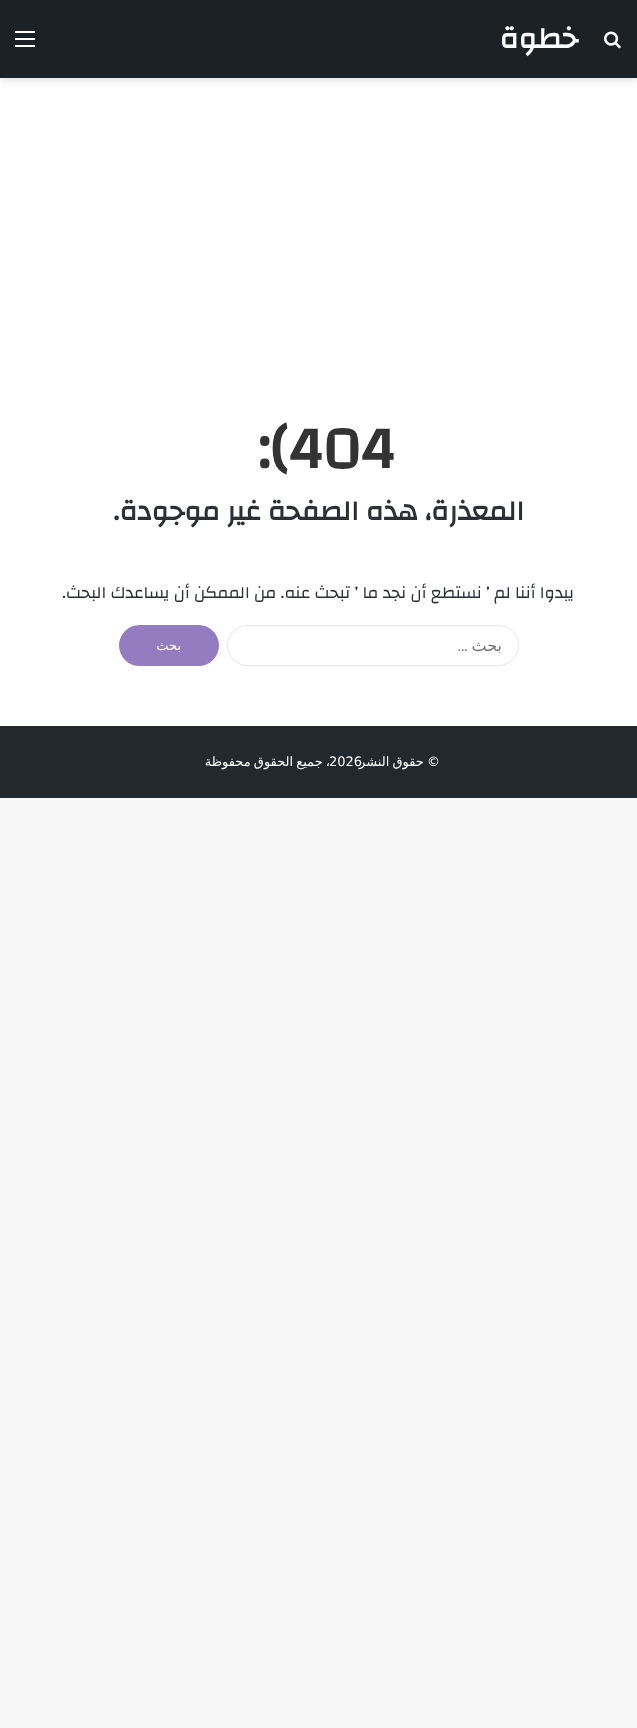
<?xml version="1.0" encoding="UTF-8"?>
<svg xmlns="http://www.w3.org/2000/svg" xmlns:xlink="http://www.w3.org/1999/xlink" width="637" height="1728">
  <rect width="100%" height="100%" fill="#f7f7f7" />
  <rect y="78" width="637" height="648" fill="#ffffff" />
  <rect y="3" width="637" height="78" fill="#000000" fill-opacity="0.1" filter="blur(3.5px)" />
  <rect width="637" height="78" fill="#1c2126" />
  <image x="604" y="31" width="17" height="18" xlink:href="image1.png" />
  <rect x="15" y="38" width="20" height="2" fill="#ffffff" />
  <rect x="15" y="31" width="20" height="2" fill="#ffffff" />
  <rect x="15" y="45" width="20" height="2" fill="#ffffff" />
  <rect x="227.5" y="625.5" width="291" height="40" rx="20" fill="none" stroke="#e6e6e6" />
  <rect x="119" y="625" width="100" height="41" rx="20.5" fill="#937cbf" />
  <rect y="726" width="637" height="72" fill="#21282e" />
  <text x="578" y="48" style="font-family: Changa; font-size: 30px; font-weight: bold; direction: rtl; fill: #ffffff">خطوة</text>
  <text x="257" y="468" style="font-family: Changa; font-size: 60px; font-weight: bold; fill: #333333">:(404</text>
  <text x="524" y="520" style="font-family: Changa; font-size: 28px; font-weight: bold; direction: rtl; fill: #2c2f34">المعذرة، هذه الصفحة غير موجودة.</text>
  <text x="574" y="598" style="font-family: Changa; font-size: 17px; direction: rtl; fill: #2c2f34">يبدوا أننا لم ’ نستطع أن نجد ما ’ تبحث عنه. من الممكن أن يساعدك البحث.</text>
  <text x="502" y="651" style="font-family: DejaVu Sans; font-size: 16px; direction: rtl; fill: #757575">بحث</text>
  <text x="468" y="651" style="font-family: Roboto; font-size: 16px; direction: rtl; fill: #757575">…</text>
  <text x="181" y="650" style="font-family: DejaVu Sans; font-size: 13px; direction: rtl; fill: #ffffff">بحث</text>
  <text x="329" y="766" style="font-family: DejaVu Sans; font-size: 13px; fill: #ffffff">2026</text>
  <text x="440" y="766" word-spacing="-1" style="font-family: DejaVu Sans; font-size: 13px; direction: rtl; fill: #ffffff">© حقوق النشر</text>
  <text x="330" y="766" word-spacing="-1" style="font-family: DejaVu Sans; font-size: 13px; direction: rtl; fill: #ffffff">، جميع الحقوق محفوظة</text>
</svg>
